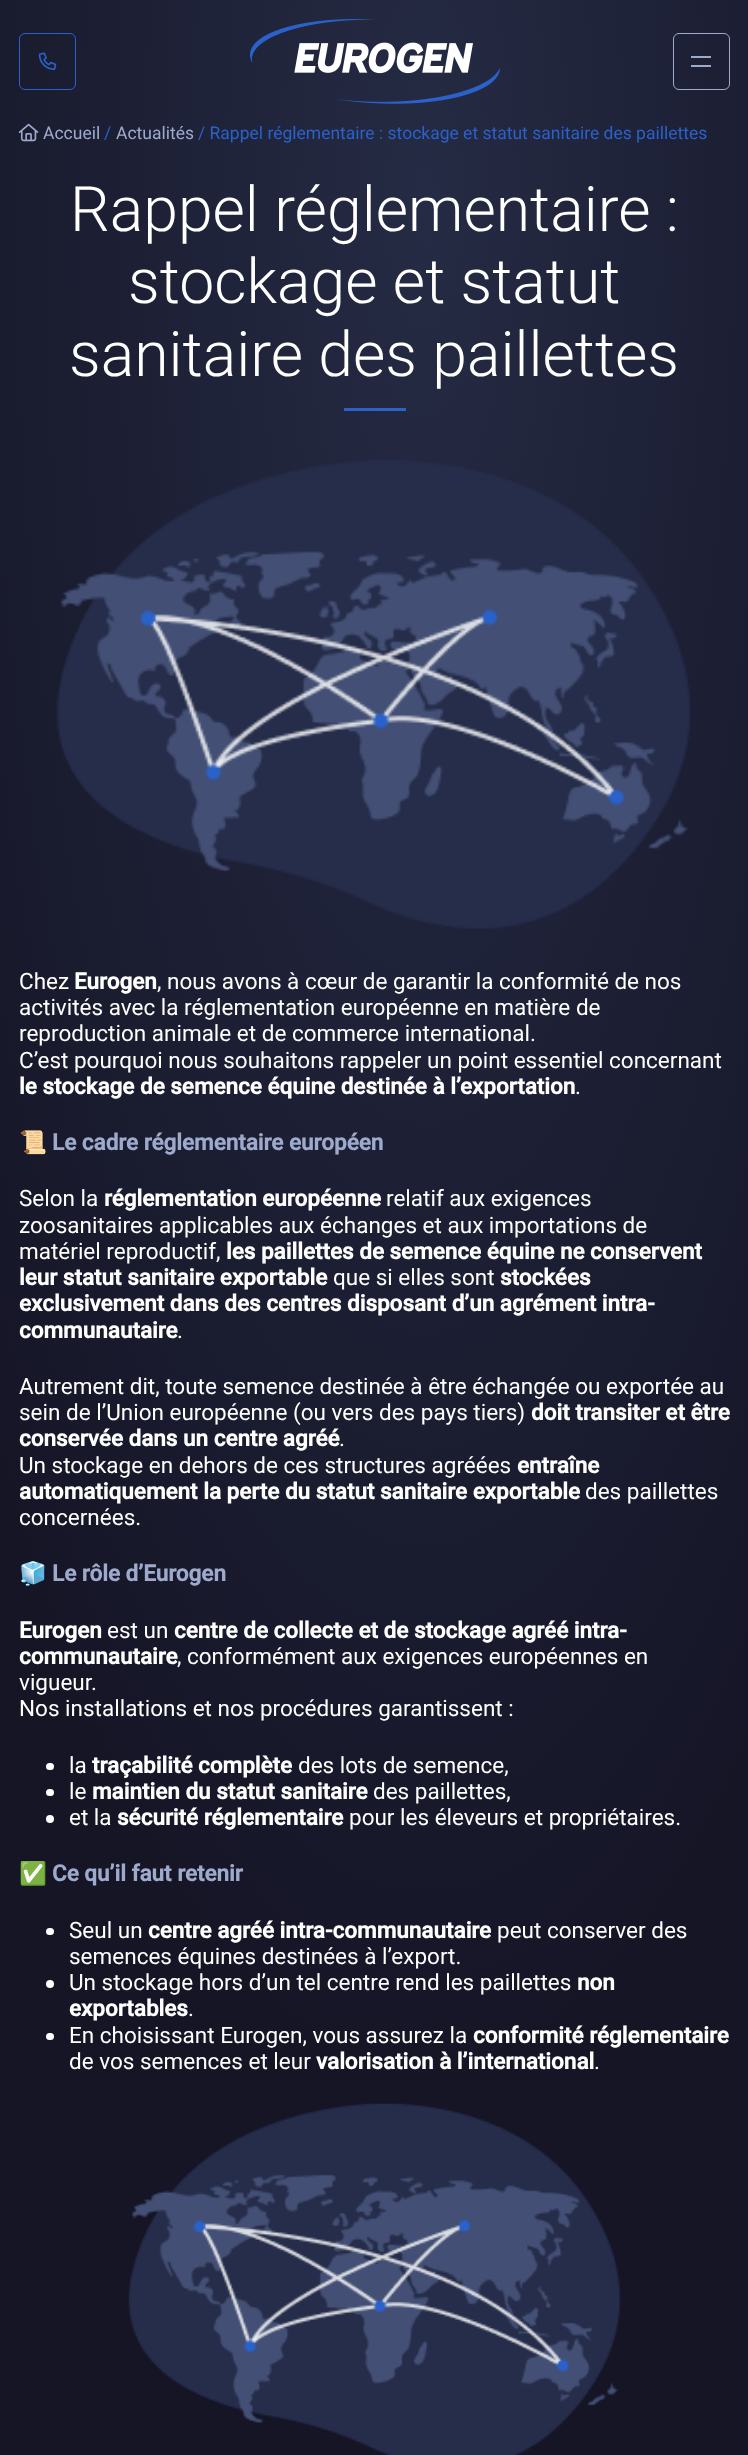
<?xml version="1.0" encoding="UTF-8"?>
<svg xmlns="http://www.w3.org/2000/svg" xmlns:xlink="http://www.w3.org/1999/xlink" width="748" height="2455">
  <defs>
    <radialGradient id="g1" gradientUnits="userSpaceOnUse" cx="0" cy="0" r="1" gradientTransform="matrix(582 0 0 1906 425 204)"><stop offset="0" stop-color="#252b44" /><stop offset="1" stop-color="#151526" /></radialGradient>
  </defs>
  <rect width="100%" height="100%" fill="#ffffff" />
  <rect width="748" height="2455" fill="url(#g1)" />
  <rect x="19.5" y="33.5" width="56" height="56" rx="5.5" fill="none" stroke="#2a61cb" />
  <image x="38" y="52" width="19" height="18" xlink:href="image1.png" />
  <image x="250" y="19" width="250" height="85" xlink:href="image2.png" />
  <rect x="673.5" y="33.5" width="56" height="56" rx="5.5" fill="none" stroke="#9eaacc" />
  <rect x="691" y="56" width="20" height="2" fill="#9eaacc" />
  <rect x="691" y="65" width="20" height="2" fill="#9eaacc" />
  <image x="18" y="123" width="21" height="19" xlink:href="image3.png" />
  <rect x="344" y="408" width="62" height="3" fill="#2a61cb" />
  <image x="56" y="460" width="635" height="469" xlink:href="image4.png" />
  <rect x="46" y="1763" width="8" height="7" rx="3.5" fill="#ffffff" />
  <rect x="46" y="1789" width="8" height="7" rx="3.5" fill="#ffffff" />
  <circle cx="50" cy="1819" r="4" fill="#ffffff" />
  <rect x="46" y="1928" width="8" height="7" rx="3.5" fill="#ffffff" />
  <circle cx="50" cy="1984" r="4" fill="#ffffff" />
  <rect x="46" y="2033" width="8" height="7" rx="3.5" fill="#ffffff" />
  <image x="128" y="2103" width="493" height="352" xlink:href="image5.png" />
  <text x="43" y="139" style="font-family: Roboto; font-size: 17.5px; fill: #9eaacc">Accueil</text>
  <text x="104" y="139" style="font-family: Roboto; font-size: 17.5px; fill: #2a61cb">/</text>
  <text x="116" y="139" style="font-family: Roboto; font-size: 17.5px; fill: #9eaacc">Actualités</text>
  <text x="198" y="139" style="font-family: Roboto; font-size: 17.5px; fill: #2a61cb">/ Rappel réglementaire : stockage et statut sanitaire des paillettes</text>
  <text x="70" y="231" style="font-family: Roboto; font-size: 62.5px; font-weight: 300; fill: #ffffff">Rappel réglementaire :</text>
  <text x="128" y="303" style="font-family: Roboto; font-size: 62.5px; font-weight: 300; fill: #ffffff">stockage et statut</text>
  <text x="69" y="376" style="font-family: Roboto; font-size: 62.5px; font-weight: 300; fill: #ffffff">sanitaire des paillettes</text>
  <text x="19" y="989" style="font-family: Roboto; font-size: 22.5px; fill: #ffffff">Chez</text>
  <text x="74" y="989" style="font-family: Roboto; font-size: 22.5px; font-weight: bold; fill: #ffffff">Eurogen</text>
  <text x="157" y="989" style="font-family: Roboto; font-size: 22.5px; fill: #ffffff">, nous avons à cœur de garantir la conformité de nos</text>
  <text x="19" y="1015" style="font-family: Roboto; font-size: 22.5px; fill: #ffffff">activités avec la réglementation européenne en matière de</text>
  <text x="19" y="1041" style="font-family: Roboto; font-size: 22.5px; fill: #ffffff">reproduction animale et de commerce international.</text>
  <text x="19" y="1068" style="font-family: Roboto; font-size: 22.5px; fill: #ffffff">C’est pourquoi nous souhaitons rappeler un point essentiel concernant</text>
  <text x="19" y="1094" style="font-family: Roboto; font-size: 22.5px; font-weight: bold; fill: #ffffff">le stockage de semence équine destinée à l’exportation</text>
  <text x="575" y="1094" style="font-family: Roboto; font-size: 22.5px; fill: #ffffff">.</text>
  <text x="19" y="1150" style="font-family: Noto Color Emoji; font-size: 22.5px; font-weight: bold; fill: #9eaacc">📜</text>
  <text x="52" y="1150" style="font-family: Roboto; font-size: 22.5px; font-weight: bold; fill: #9eaacc">Le cadre réglementaire européen</text>
  <text x="19" y="1206" style="font-family: Roboto; font-size: 22.5px; fill: #ffffff">Selon la</text>
  <text x="104" y="1206" style="font-family: Roboto; font-size: 22.5px; font-weight: bold; fill: #ffffff">réglementation européenne</text>
  <text x="386" y="1206" style="font-family: Roboto; font-size: 22.5px; fill: #ffffff">relatif aux exigences</text>
  <text x="19" y="1233" style="font-family: Roboto; font-size: 22.5px; fill: #ffffff">zoosanitaires applicables aux échanges et aux importations de</text>
  <text x="19" y="1259" style="font-family: Roboto; font-size: 22.5px; fill: #ffffff">matériel reproductif,</text>
  <text x="226" y="1259" style="font-family: Roboto; font-size: 22.5px; font-weight: bold; fill: #ffffff">les paillettes de semence équine ne conservent</text>
  <text x="19" y="1285" style="font-family: Roboto; font-size: 22.5px; font-weight: bold; fill: #ffffff">leur statut sanitaire exportable</text>
  <text x="333" y="1285" style="font-family: Roboto; font-size: 22.5px; fill: #ffffff">que si elles sont</text>
  <text x="500" y="1285" style="font-family: Roboto; font-size: 22.5px; font-weight: bold; fill: #ffffff">stockées</text>
  <text x="19" y="1311" style="font-family: Roboto; font-size: 22.5px; font-weight: bold; fill: #ffffff">exclusivement dans des centres disposant d’un agrément intra-</text>
  <text x="19" y="1338" style="font-family: Roboto; font-size: 22.5px; font-weight: bold; fill: #ffffff">communautaire</text>
  <text x="177" y="1338" style="font-family: Roboto; font-size: 22.5px; fill: #ffffff">.</text>
  <text x="19" y="1394" style="font-family: Roboto; font-size: 22.5px; fill: #ffffff">Autrement dit, toute semence destinée à être échangée ou exportée au</text>
  <text x="19" y="1420" style="font-family: Roboto; font-size: 22.5px; fill: #ffffff">sein de l’Union européenne (ou vers des pays tiers)</text>
  <text x="531" y="1420" style="font-family: Roboto; font-size: 22.5px; font-weight: bold; fill: #ffffff">doit transiter et être</text>
  <text x="19" y="1446" style="font-family: Roboto; font-size: 22.5px; font-weight: bold; fill: #ffffff">conservée dans un centre agréé</text>
  <text x="339" y="1446" style="font-family: Roboto; font-size: 22.5px; fill: #ffffff">.</text>
  <text x="19" y="1473" style="font-family: Roboto; font-size: 22.5px; fill: #ffffff">Un stockage en dehors de ces structures agréées</text>
  <text x="517" y="1473" style="font-family: Roboto; font-size: 22.5px; font-weight: bold; fill: #ffffff">entraîne</text>
  <text x="19" y="1499" style="font-family: Roboto; font-size: 22.5px; font-weight: bold; fill: #ffffff">automatiquement la perte du statut sanitaire exportable</text>
  <text x="585" y="1499" style="font-family: Roboto; font-size: 22.5px; fill: #ffffff">des paillettes</text>
  <text x="19" y="1525" style="font-family: Roboto; font-size: 22.5px; fill: #ffffff">concernées.</text>
  <text x="19" y="1581" style="font-family: Noto Color Emoji; font-size: 22.5px; font-weight: bold; fill: #9eaacc">🧊</text>
  <text x="52" y="1581" style="font-family: Roboto; font-size: 22.5px; font-weight: bold; fill: #9eaacc">Le rôle d’Eurogen</text>
  <text x="19" y="1638" style="font-family: Roboto; font-size: 22.5px; font-weight: bold; fill: #ffffff">Eurogen</text>
  <text x="107" y="1638" style="font-family: Roboto; font-size: 22.5px; fill: #ffffff">est un</text>
  <text x="174" y="1638" style="font-family: Roboto; font-size: 22.5px; font-weight: bold; fill: #ffffff">centre de collecte et de stockage agréé intra-</text>
  <text x="19" y="1664" style="font-family: Roboto; font-size: 22.5px; font-weight: bold; fill: #ffffff">communautaire</text>
  <text x="177" y="1664" style="font-family: Roboto; font-size: 22.5px; fill: #ffffff">, conformément aux exigences européennes en</text>
  <text x="19" y="1690" style="font-family: Roboto; font-size: 22.5px; fill: #ffffff">vigueur.</text>
  <text x="19" y="1716" style="font-family: Roboto; font-size: 22.5px; fill: #ffffff">Nos installations et nos procédures garantissent :</text>
  <text x="69" y="1773" style="font-family: Roboto; font-size: 22.5px; fill: #ffffff">la</text>
  <text x="92" y="1773" style="font-family: Roboto; font-size: 22.5px; font-weight: bold; fill: #ffffff">traçabilité complète</text>
  <text x="298" y="1773" style="font-family: Roboto; font-size: 22.5px; fill: #ffffff">des lots de semence,</text>
  <text x="69" y="1799" style="font-family: Roboto; font-size: 22.5px; fill: #ffffff">le</text>
  <text x="92" y="1799" style="font-family: Roboto; font-size: 22.5px; font-weight: bold; fill: #ffffff">maintien du statut sanitaire</text>
  <text x="373" y="1799" style="font-family: Roboto; font-size: 22.5px; fill: #ffffff">des paillettes,</text>
  <text x="69" y="1825" style="font-family: Roboto; font-size: 22.5px; fill: #ffffff">et la</text>
  <text x="117" y="1825" style="font-family: Roboto; font-size: 22.5px; font-weight: bold; fill: #ffffff">sécurité réglementaire</text>
  <text x="349" y="1825" style="font-family: Roboto; font-size: 22.5px; fill: #ffffff">pour les éleveurs et propriétaires.</text>
  <text x="19" y="1881" style="font-family: Noto Color Emoji; font-size: 22.5px; font-weight: bold; fill: #9eaacc">✅</text>
  <text x="52" y="1881" style="font-family: Roboto; font-size: 22.5px; font-weight: bold; fill: #9eaacc">Ce qu’il faut retenir</text>
  <text x="69" y="1938" style="font-family: Roboto; font-size: 22.5px; fill: #ffffff">Seul un</text>
  <text x="148" y="1938" style="font-family: Roboto; font-size: 22.5px; font-weight: bold; fill: #ffffff">centre agréé intra-communautaire</text>
  <text x="497" y="1938" style="font-family: Roboto; font-size: 22.5px; fill: #ffffff">peut conserver des</text>
  <text x="69" y="1964" style="font-family: Roboto; font-size: 22.5px; fill: #ffffff">semences équines destinées à l’export.</text>
  <text x="69" y="1990" style="font-family: Roboto; font-size: 22.5px; fill: #ffffff">Un stockage hors d’un tel centre rend les paillettes</text>
  <text x="577" y="1990" style="font-family: Roboto; font-size: 22.5px; font-weight: bold; fill: #ffffff">non</text>
  <text x="69" y="2016" style="font-family: Roboto; font-size: 22.5px; font-weight: bold; fill: #ffffff">exportables</text>
  <text x="188" y="2016" style="font-family: Roboto; font-size: 22.5px; fill: #ffffff">.</text>
  <text x="69" y="2043" style="font-family: Roboto; font-size: 22.5px; fill: #ffffff">En choisissant Eurogen, vous assurez la</text>
  <text x="473" y="2043" style="font-family: Roboto; font-size: 22.5px; font-weight: bold; fill: #ffffff">conformité réglementaire</text>
  <text x="69" y="2069" style="font-family: Roboto; font-size: 22.5px; fill: #ffffff">de vos semences et leur</text>
  <text x="316" y="2069" style="font-family: Roboto; font-size: 22.5px; font-weight: bold; fill: #ffffff">valorisation à l’international</text>
  <text x="594" y="2069" style="font-family: Roboto; font-size: 22.5px; fill: #ffffff">.</text>
</svg>
